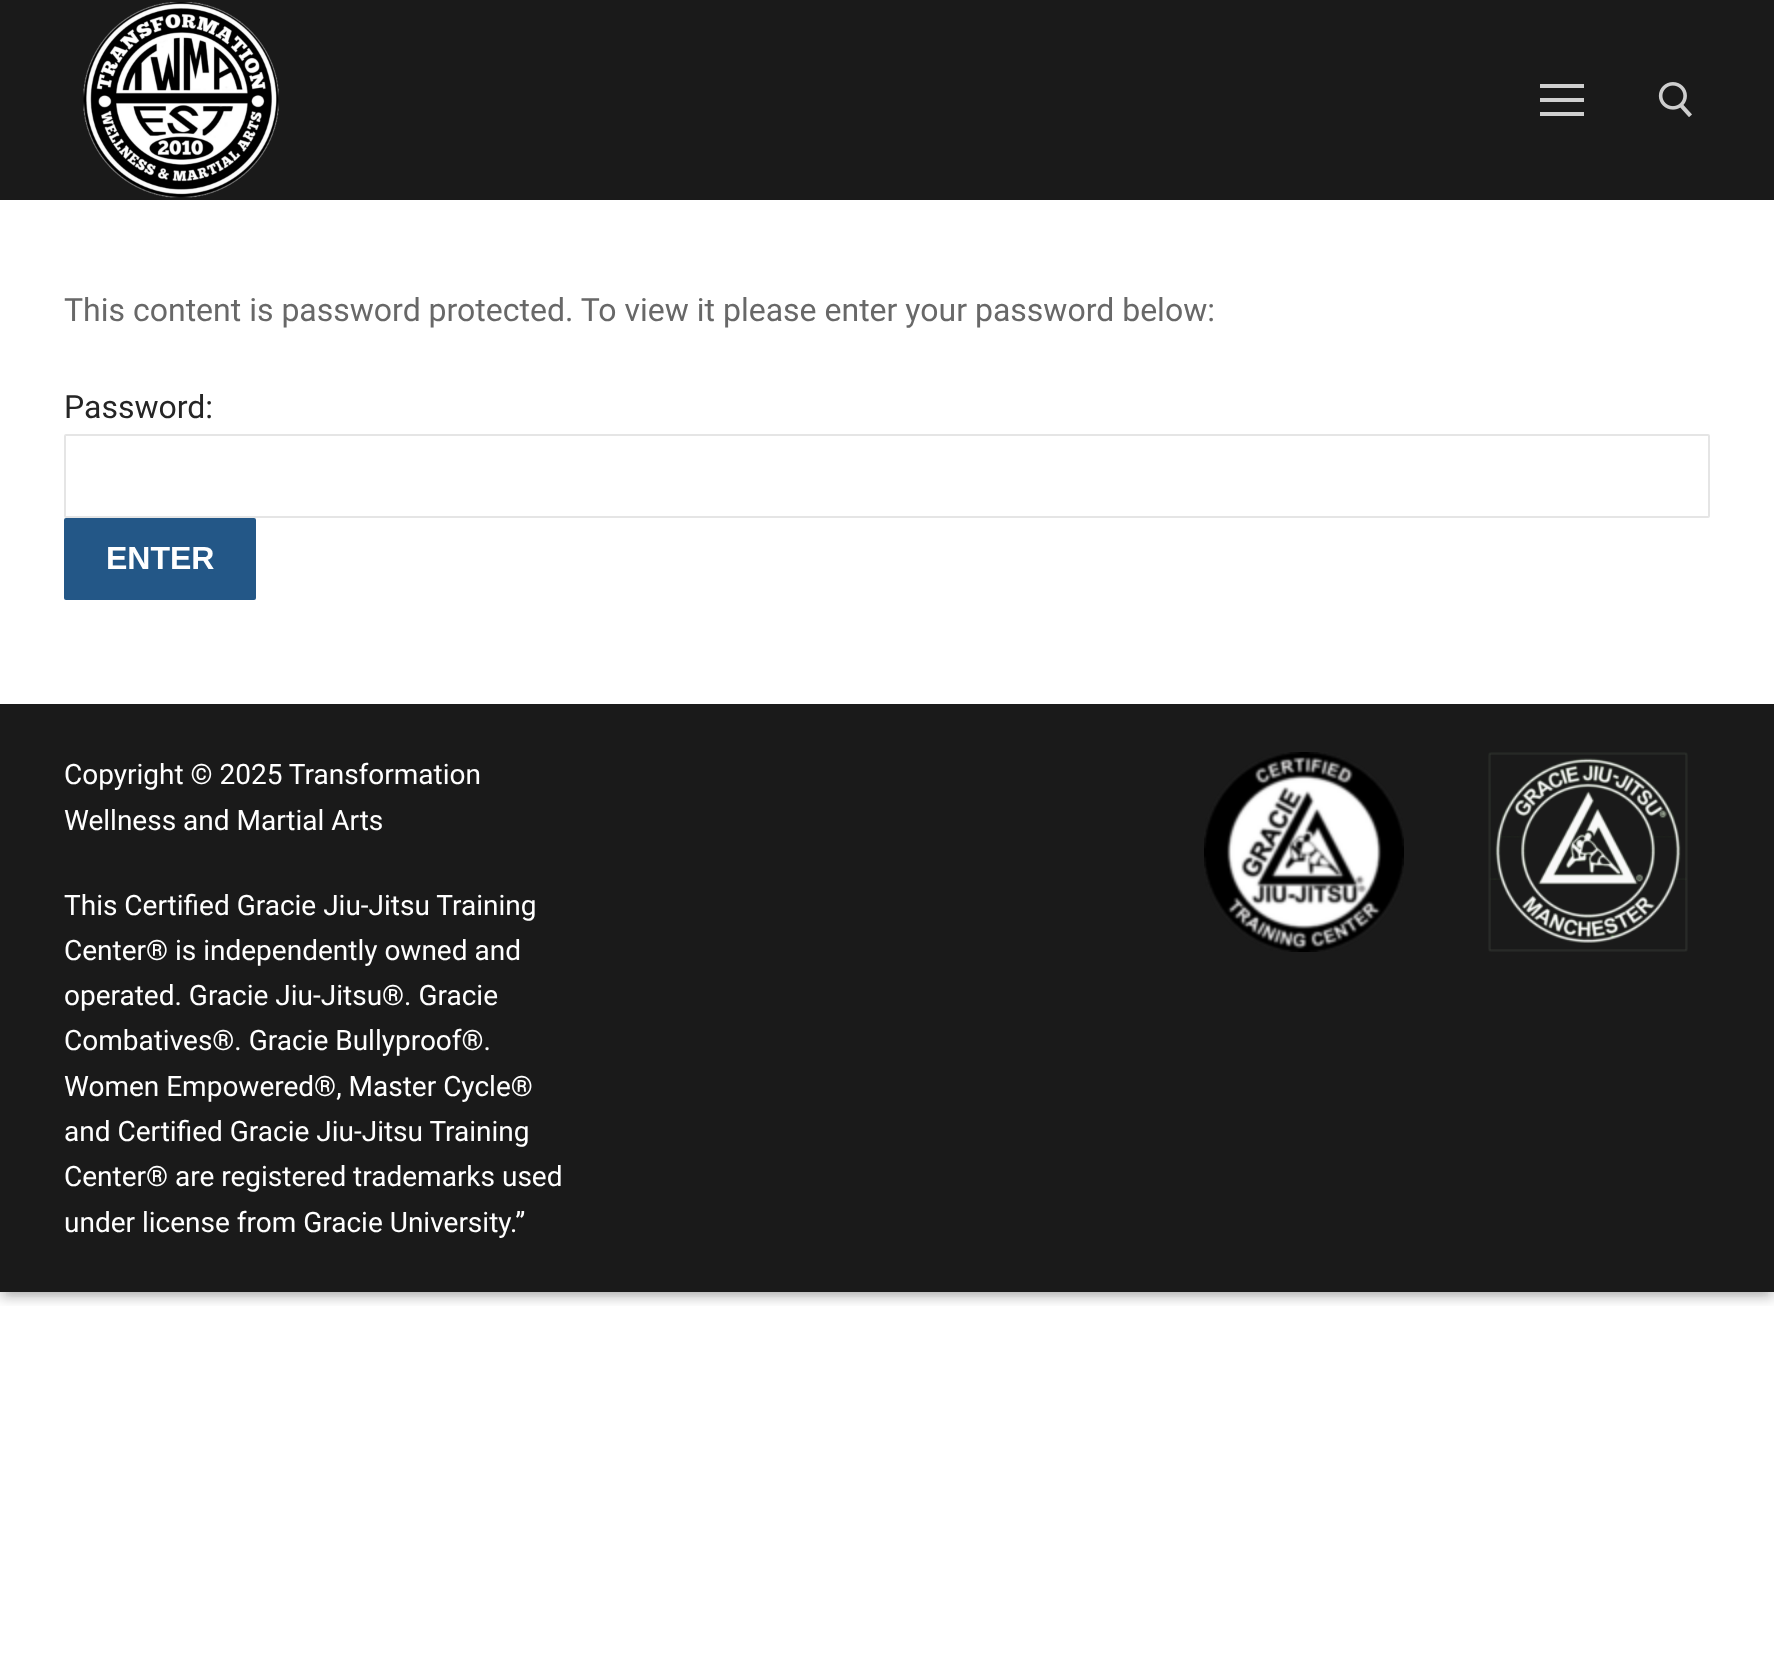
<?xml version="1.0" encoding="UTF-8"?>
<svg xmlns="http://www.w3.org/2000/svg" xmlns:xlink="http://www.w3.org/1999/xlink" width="1774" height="1655">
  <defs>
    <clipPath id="clip1"><rect x="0" y="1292" width="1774" height="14" /></clipPath>
    <clipPath id="clip2"><rect x="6" y="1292" width="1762" height="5" /></clipPath>
  </defs>
  <rect width="100%" height="100%" fill="#ffffff" />
  <g clip-path="url(#clip1)">
    <rect y="6" width="1774" height="1292" fill="#000000" fill-opacity="0.23" filter="blur(6px)" />
  </g>
  <g clip-path="url(#clip2)">
    <rect x="8" y="14" width="1758" height="1276" fill="#000000" fill-opacity="0.16" filter="blur(6px)" />
  </g>
  <rect width="1774" height="200" fill="#1a1a1a" />
  <image x="83" y="2" width="196" height="196" xlink:href="image1.png" />
  <rect x="1540" y="98" width="44" height="4" fill="#cfcfcf" />
  <rect x="1540" y="84" width="44" height="4" fill="#cfcfcf" />
  <rect x="1540" y="112" width="44" height="4" fill="#cfcfcf" />
  <image x="1658" y="82" width="34" height="35" xlink:href="image2.png" />
  <rect x="65" y="435" width="1644" height="82" rx="1" fill="none" stroke="#e5e5e5" stroke-width="2" />
  <rect x="64" y="518" width="192" height="82" rx="2" fill="#235787" />
  <rect y="704" width="1774" height="588" fill="#1a1a1a" />
  <image x="1204" y="752" width="200" height="200" xlink:href="image3.png" />
  <image x="1488" y="752" width="200" height="200" xlink:href="image4.png" />
  <text x="64" y="321" style="font-family: Roboto; font-size: 32px; fill: #686868">This content is password protected. To view it please enter your password below:</text>
  <text x="64" y="418" style="font-family: Roboto; font-size: 32px; fill: #252525">Password:</text>
  <text x="106" y="569" style="font-family: Liberation Sans; font-size: 32px; font-weight: bold; fill: #ffffff">ENTER</text>
  <text x="64" y="784" style="font-family: Roboto; font-size: 28px; fill: #ffffff">Copyright © 2025 Transformation</text>
  <text x="64" y="830" style="font-family: Roboto; font-size: 28px; fill: #ffffff">Wellness and Martial Arts</text>
  <text x="64" y="915" style="font-family: Roboto; font-size: 28px; fill: #ffffff">This Certified Gracie Jiu-Jitsu Training</text>
  <text x="64" y="960" style="font-family: Roboto; font-size: 28px; fill: #ffffff">Center® is independently owned and</text>
  <text x="64" y="1005" style="font-family: Roboto; font-size: 28px; fill: #ffffff">operated. Gracie Jiu-Jitsu®. Gracie</text>
  <text x="64" y="1050" style="font-family: Roboto; font-size: 28px; fill: #ffffff">Combatives®. Gracie Bullyproof®.</text>
  <text x="64" y="1096" style="font-family: Roboto; font-size: 28px; fill: #ffffff">Women Empowered®, Master Cycle®</text>
  <text x="64" y="1141" style="font-family: Roboto; font-size: 28px; fill: #ffffff">and Certified Gracie Jiu-Jitsu Training</text>
  <text x="64" y="1186" style="font-family: Roboto; font-size: 28px; fill: #ffffff">Center® are registered trademarks used</text>
  <text x="64" y="1232" style="font-family: Roboto; font-size: 28px; fill: #ffffff">under license from Gracie University.”</text>
</svg>
